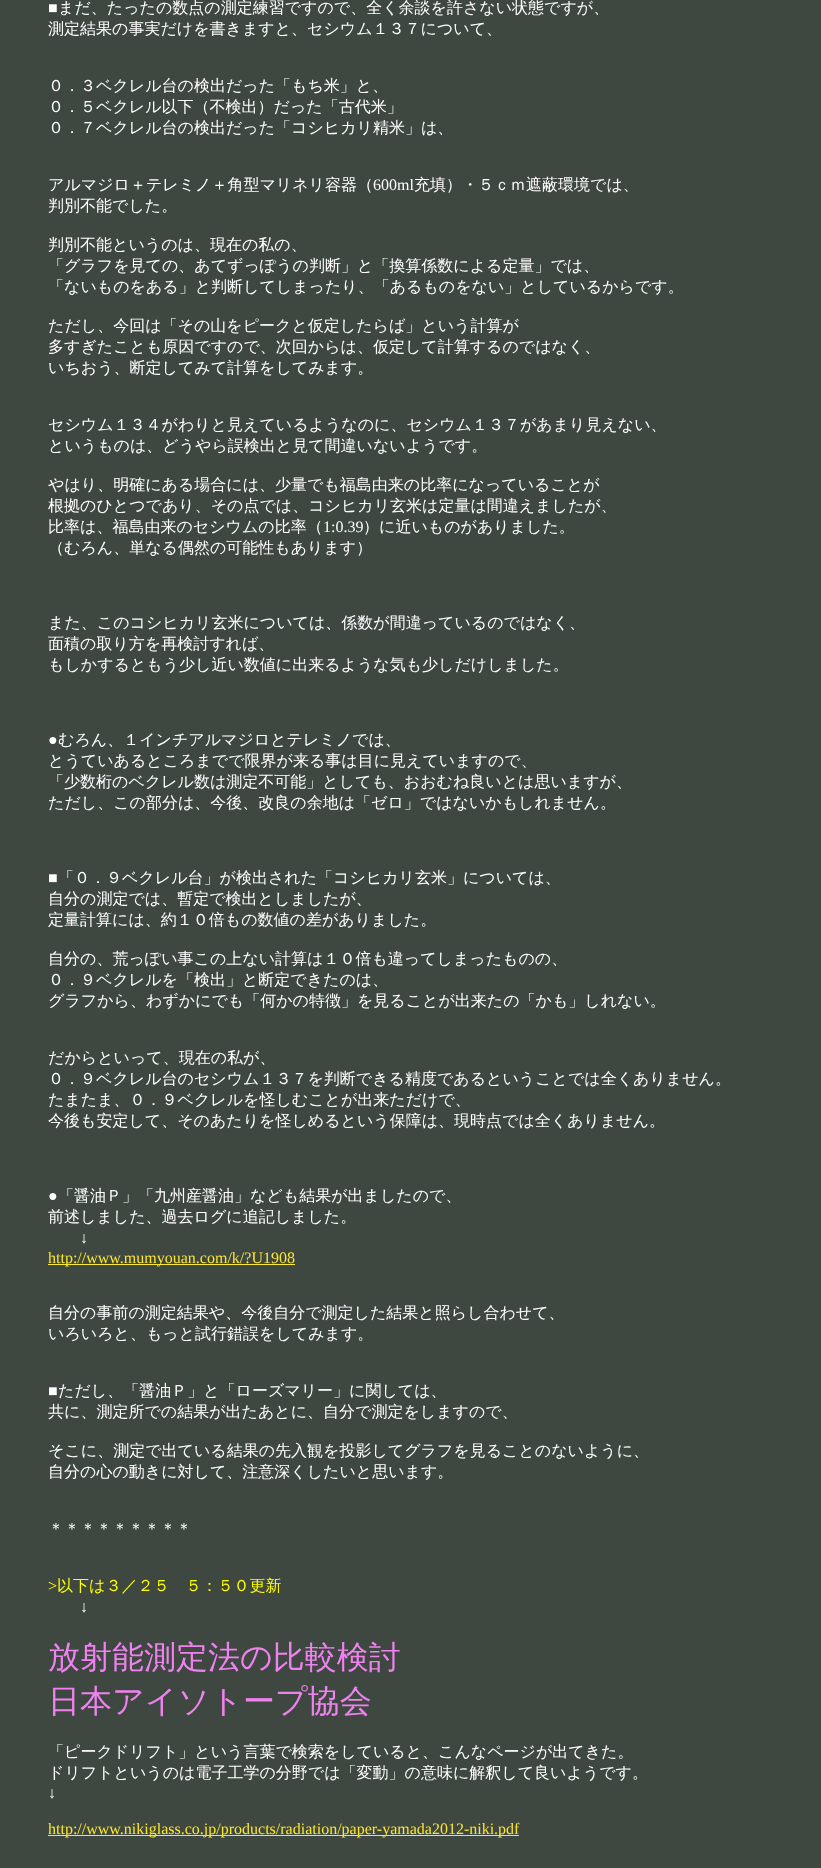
<?xml version="1.0" encoding="UTF-8"?>
<svg xmlns="http://www.w3.org/2000/svg" xmlns:xlink="http://www.w3.org/1999/xlink" width="821" height="1868">
  <rect width="100%" height="100%" fill="#3f4741" />
  <rect x="48" y="1264" width="247" height="1" fill="#fbe731" />
  <rect x="48" y="1835" width="471" height="1" fill="#fbe731" />
  <text x="48" y="13" style="font-family: Liberation Serif; font-size: 16px; fill: #ffffff">■</text>
  <text x="58" y="13" style="font-family: WenQuanYi Zen Hei; font-size: 16px; font-weight: 500; fill: #ffffff">まだ、たったの数点の測定練習ですので、全く余談を許さない状態ですが、</text>
  <text x="48" y="34" style="font-family: WenQuanYi Zen Hei; font-size: 16px; font-weight: 500; fill: #ffffff">測定結果の事実だけを書きますと、セシウム１３７について、</text>
  <text x="48" y="91" style="font-family: WenQuanYi Zen Hei; font-size: 16px; font-weight: 500; fill: #ffffff">０．３ベクレル台の検出だった「もち米」と、</text>
  <text x="48" y="112" style="font-family: WenQuanYi Zen Hei; font-size: 16px; font-weight: 500; fill: #ffffff">０．５ベクレル以下（不検出）だった「古代米」</text>
  <text x="48" y="133" style="font-family: WenQuanYi Zen Hei; font-size: 16px; font-weight: 500; fill: #ffffff">０．７ベクレル台の検出だった「コシヒカリ精米」は、</text>
  <text x="48" y="190" style="font-family: WenQuanYi Zen Hei; font-size: 16px; font-weight: 500; fill: #ffffff">アルマジロ＋テレミノ＋角型マリネリ容器（</text>
  <text x="373" y="190" style="font-family: Liberation Serif; font-size: 16px; fill: #ffffff">600ml</text>
  <text x="414" y="190" style="font-family: WenQuanYi Zen Hei; font-size: 16px; font-weight: 500; fill: #ffffff">充填）・５ｃｍ遮蔽環境では、</text>
  <text x="48" y="211" style="font-family: WenQuanYi Zen Hei; font-size: 16px; font-weight: 500; fill: #ffffff">判別不能でした。</text>
  <text x="48" y="250" style="font-family: WenQuanYi Zen Hei; font-size: 16px; font-weight: 500; fill: #ffffff">判別不能というのは、現在の私の、</text>
  <text x="48" y="271" style="font-family: WenQuanYi Zen Hei; font-size: 16px; font-weight: 500; fill: #ffffff">「グラフを見ての、あてずっぽうの判断」と「換算係数による定量」では、</text>
  <text x="48" y="292" style="font-family: WenQuanYi Zen Hei; font-size: 16px; font-weight: 500; fill: #ffffff">「ないものをある」と判断してしまったり、「あるものをない」としているからです。</text>
  <text x="48" y="331" style="font-family: WenQuanYi Zen Hei; font-size: 16px; font-weight: 500; fill: #ffffff">ただし、今回は「その山をピークと仮定したらば」という計算が</text>
  <text x="48" y="352" style="font-family: WenQuanYi Zen Hei; font-size: 16px; font-weight: 500; fill: #ffffff">多すぎたことも原因ですので、次回からは、仮定して計算するのではなく、</text>
  <text x="48" y="373" style="font-family: WenQuanYi Zen Hei; font-size: 16px; font-weight: 500; fill: #ffffff">いちおう、断定してみて計算をしてみます。</text>
  <text x="48" y="430" style="font-family: WenQuanYi Zen Hei; font-size: 16px; font-weight: 500; fill: #ffffff">セシウム１３４がわりと見えているようなのに、セシウム１３７があまり見えない、</text>
  <text x="48" y="451" style="font-family: WenQuanYi Zen Hei; font-size: 16px; font-weight: 500; fill: #ffffff">というものは、どうやら誤検出と見て間違いないようです。</text>
  <text x="48" y="490" style="font-family: WenQuanYi Zen Hei; font-size: 16px; font-weight: 500; fill: #ffffff">やはり、明確にある場合には、少量でも福島由来の比率になっていることが</text>
  <text x="48" y="511" style="font-family: WenQuanYi Zen Hei; font-size: 16px; font-weight: 500; fill: #ffffff">根拠のひとつであり、その点では、コシヒカリ玄米は定量は間違えましたが、</text>
  <text x="48" y="532" style="font-family: WenQuanYi Zen Hei; font-size: 16px; font-weight: 500; fill: #ffffff">比率は、福島由来のセシウムの比率（</text>
  <text x="323" y="532" style="font-family: Liberation Serif; font-size: 16px; fill: #ffffff">1:0.39</text>
  <text x="363" y="532" style="font-family: WenQuanYi Zen Hei; font-size: 16px; font-weight: 500; fill: #ffffff">）に近いものがありました。</text>
  <text x="48" y="553" style="font-family: WenQuanYi Zen Hei; font-size: 16px; font-weight: 500; fill: #ffffff">（むろん、単なる偶然の可能性もあります）</text>
  <text x="48" y="628" style="font-family: WenQuanYi Zen Hei; font-size: 16px; font-weight: 500; fill: #ffffff">また、このコシヒカリ玄米については、係数が間違っているのではなく、</text>
  <text x="48" y="649" style="font-family: WenQuanYi Zen Hei; font-size: 16px; font-weight: 500; fill: #ffffff">面積の取り方を再検討すれば、</text>
  <text x="48" y="670" style="font-family: WenQuanYi Zen Hei; font-size: 16px; font-weight: 500; fill: #ffffff">もしかするともう少し近い数値に出来るような気も少しだけしました。</text>
  <text x="48" y="745" style="font-family: Liberation Serif; font-size: 16px; fill: #ffffff">●</text>
  <text x="58" y="745" style="font-family: WenQuanYi Zen Hei; font-size: 16px; font-weight: 500; fill: #ffffff">むろん、１インチアルマジロとテレミノでは、</text>
  <text x="48" y="766" style="font-family: WenQuanYi Zen Hei; font-size: 16px; font-weight: 500; fill: #ffffff">とうていあるところまでで限界が来る事は目に見えていますので、</text>
  <text x="48" y="787" style="font-family: WenQuanYi Zen Hei; font-size: 16px; font-weight: 500; fill: #ffffff">「少数桁のベクレル数は測定不可能」としても、おおむね良いとは思いますが、</text>
  <text x="48" y="808" style="font-family: WenQuanYi Zen Hei; font-size: 16px; font-weight: 500; fill: #ffffff">ただし、この部分は、今後、改良の余地は「ゼロ」ではないかもしれません。</text>
  <text x="48" y="883" style="font-family: Liberation Serif; font-size: 16px; fill: #ffffff">■</text>
  <text x="58" y="883" style="font-family: WenQuanYi Zen Hei; font-size: 16px; font-weight: 500; fill: #ffffff">「０．９ベクレル台」が検出された「コシヒカリ玄米」については、</text>
  <text x="48" y="904" style="font-family: WenQuanYi Zen Hei; font-size: 16px; font-weight: 500; fill: #ffffff">自分の測定では、暫定で検出としましたが、</text>
  <text x="48" y="925" style="font-family: WenQuanYi Zen Hei; font-size: 16px; font-weight: 500; fill: #ffffff">定量計算には、約１０倍もの数値の差がありました。</text>
  <text x="48" y="964" style="font-family: WenQuanYi Zen Hei; font-size: 16px; font-weight: 500; fill: #ffffff">自分の、荒っぽい事この上ない計算は１０倍も違ってしまったものの、</text>
  <text x="48" y="985" style="font-family: WenQuanYi Zen Hei; font-size: 16px; font-weight: 500; fill: #ffffff">０．９ベクレルを「検出」と断定できたのは、</text>
  <text x="48" y="1006" style="font-family: WenQuanYi Zen Hei; font-size: 16px; font-weight: 500; fill: #ffffff">グラフから、わずかにでも「何かの特徴」を見ることが出来たの「かも」しれない。</text>
  <text x="48" y="1063" style="font-family: WenQuanYi Zen Hei; font-size: 16px; font-weight: 500; fill: #ffffff">だからといって、現在の私が、</text>
  <text x="48" y="1084" style="font-family: WenQuanYi Zen Hei; font-size: 16px; font-weight: 500; fill: #ffffff">０．９ベクレル台のセシウム１３７を判断できる精度であるということでは全くありません。</text>
  <text x="48" y="1105" style="font-family: WenQuanYi Zen Hei; font-size: 16px; font-weight: 500; fill: #ffffff">たまたま、０．９ベクレルを怪しむことが出来ただけで、</text>
  <text x="48" y="1126" style="font-family: WenQuanYi Zen Hei; font-size: 16px; font-weight: 500; fill: #ffffff">今後も安定して、そのあたりを怪しめるという保障は、現時点では全くありません。</text>
  <text x="48" y="1201" style="font-family: Liberation Serif; font-size: 16px; fill: #ffffff">●</text>
  <text x="58" y="1201" style="font-family: WenQuanYi Zen Hei; font-size: 16px; font-weight: 500; fill: #ffffff">「醤油Ｐ」「九州産醤油」なども結果が出ましたので、</text>
  <text x="48" y="1222" style="font-family: WenQuanYi Zen Hei; font-size: 16px; font-weight: 500; fill: #ffffff">前述しました、過去ログに追記しました。</text>
  <text x="80" y="1243" style="font-family: Liberation Serif; font-size: 16px; fill: #ffffff">↓</text>
  <text x="48" y="1263" style="font-family: Liberation Serif; font-size: 16px; fill: #fbe731">http://www.mumyouan.com/k/?U1908</text>
  <text x="48" y="1318" style="font-family: WenQuanYi Zen Hei; font-size: 16px; font-weight: 500; fill: #ffffff">自分の事前の測定結果や、今後自分で測定した結果と照らし合わせて、</text>
  <text x="48" y="1339" style="font-family: WenQuanYi Zen Hei; font-size: 16px; font-weight: 500; fill: #ffffff">いろいろと、もっと試行錯誤をしてみます。</text>
  <text x="48" y="1396" style="font-family: Liberation Serif; font-size: 16px; fill: #ffffff">■</text>
  <text x="58" y="1396" style="font-family: WenQuanYi Zen Hei; font-size: 16px; font-weight: 500; fill: #ffffff">ただし、「醤油Ｐ」と「ローズマリー」に関しては、</text>
  <text x="48" y="1417" style="font-family: WenQuanYi Zen Hei; font-size: 16px; font-weight: 500; fill: #ffffff">共に、測定所での結果が出たあとに、自分で測定をしますので、</text>
  <text x="48" y="1456" style="font-family: WenQuanYi Zen Hei; font-size: 16px; font-weight: 500; fill: #ffffff">そこに、測定で出ている結果の先入観を投影してグラフを見ることのないように、</text>
  <text x="48" y="1477" style="font-family: WenQuanYi Zen Hei; font-size: 16px; font-weight: 500; fill: #ffffff">自分の心の動きに対して、注意深くしたいと思います。</text>
  <text x="48" y="1534" style="font-family: WenQuanYi Zen Hei; font-size: 16px; font-weight: 500; fill: #ffffff">＊＊＊＊＊＊＊＊＊</text>
  <text x="48" y="1591" style="font-family: Liberation Serif; font-size: 16px; fill: #ffff00">&gt;</text>
  <text x="57" y="1591" style="font-family: WenQuanYi Zen Hei; font-size: 16px; font-weight: 500; fill: #ffff00">以下は３／２５　５：５０更新</text>
  <text x="80" y="1612" style="font-family: Liberation Serif; font-size: 16px; fill: #ffffff">↓</text>
  <text x="48" y="1668" style="font-family: WenQuanYi Zen Hei; font-size: 32px; font-weight: 500; fill: #ee82ee">放射能測定法の比較検討</text>
  <text x="48" y="1712" style="font-family: WenQuanYi Zen Hei; font-size: 32px; font-weight: 500; fill: #ee82ee">日本アイソトープ協会</text>
  <text x="48" y="1757" style="font-family: WenQuanYi Zen Hei; font-size: 16px; font-weight: 500; fill: #ffffff">「ピークドリフト」という言葉で検索をしていると、こんなページが出てきた。</text>
  <text x="48" y="1778" style="font-family: WenQuanYi Zen Hei; font-size: 16px; font-weight: 500; fill: #ffffff">ドリフトというのは電子工学の分野では「変動」の意味に解釈して良いようです。</text>
  <text x="48" y="1798" style="font-family: Liberation Serif; font-size: 16px; fill: #ffffff">↓</text>
  <text x="48" y="1834" style="font-family: Liberation Serif; font-size: 16px; fill: #fbe731">http://www.nikiglass.co.jp/products/radiation/paper-yamada2012-niki.pdf</text>
</svg>
